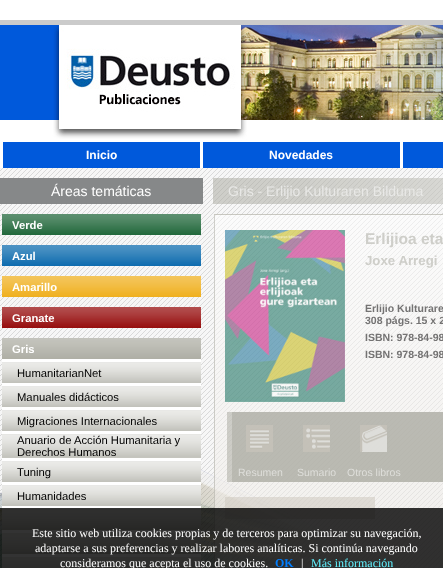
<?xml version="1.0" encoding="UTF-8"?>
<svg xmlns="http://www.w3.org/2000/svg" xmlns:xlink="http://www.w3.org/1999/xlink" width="443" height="568">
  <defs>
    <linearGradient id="g1" gradientUnits="userSpaceOnUse" x1="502" y1="215" x2="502" y2="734"><stop offset="0" stop-color="#ffffff" stop-opacity="0.53" /><stop offset="1" stop-color="#e3ddd5" stop-opacity="0.53" /></linearGradient>
  </defs>
  <rect width="100%" height="100%" fill="#ffffff" />
  <image x="0" y="168" width="443" height="400" xlink:href="image1.png" />
  <image x="0" y="0" width="443" height="142" xlink:href="image2.png" />
  <rect x="3" y="142" width="197" height="26" fill="#0059db" />
  <rect x="203" y="142" width="197" height="26" fill="#0059db" />
  <rect x="403" y="142" width="40" height="26" fill="#0059db" />
  <image x="0" y="469" width="327" height="99" xlink:href="image3.png" />
  <rect y="178" width="203" height="26" fill="#868889" />
  <rect x="2" y="214" width="199" height="21" fill="#166031" />
  <image x="2" y="214" width="199" height="21" xlink:href="image4.png" />
  <rect x="2" y="245" width="199" height="21" fill="#0064aa" />
  <image x="2" y="245" width="199" height="21" xlink:href="image5.png" />
  <rect x="2" y="276" width="199" height="21" fill="#efac13" />
  <image x="2" y="276" width="199" height="21" xlink:href="image6.png" />
  <rect x="2" y="307" width="199" height="21" fill="#910000" />
  <image x="2" y="307" width="199" height="21" xlink:href="image7.png" />
  <rect x="2" y="338" width="199" height="230" fill="#aaaaa0" />
  <image x="2" y="338" width="199" height="21" xlink:href="image8.png" />
  <image x="2" y="362" width="199" height="21" xlink:href="image9.png" />
  <rect x="2" y="359" width="199" height="3" fill="#ffffff" />
  <image x="2" y="386" width="199" height="21" xlink:href="image9.png" />
  <rect x="2" y="383" width="199" height="3" fill="#ffffff" />
  <image x="2" y="410" width="199" height="21" xlink:href="image9.png" />
  <rect x="2" y="407" width="199" height="3" fill="#ffffff" />
  <image x="2" y="434" width="199" height="24" xlink:href="image10.png" />
  <rect x="2" y="431" width="199" height="3" fill="#ffffff" />
  <image x="2" y="461" width="199" height="21" xlink:href="image9.png" />
  <rect x="2" y="458" width="199" height="3" fill="#ffffff" />
  <image x="2" y="485" width="199" height="21" xlink:href="image9.png" />
  <rect x="2" y="482" width="199" height="3" fill="#ffffff" />
  <image x="2" y="509" width="199" height="21" xlink:href="image9.png" />
  <rect x="2" y="506" width="199" height="3" fill="#ffffff" />
  <image x="2" y="533" width="199" height="21" xlink:href="image9.png" />
  <rect x="2" y="530" width="199" height="3" fill="#ffffff" />
  <image x="2" y="557" width="199" height="11" xlink:href="image11.png" />
  <rect x="2" y="554" width="199" height="3" fill="#ffffff" />
  <rect x="213" y="178" width="230" height="26" fill="#aaaaa0" fill-opacity="0.53" />
  <image x="310" y="178" width="133" height="26" xlink:href="image12.png" />
  <rect x="214" y="215" width="229" height="353" fill="url(#g1)" />
  <rect x="214.5" y="214.5" width="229" height="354" fill="none" stroke="#aaaaa0" stroke-opacity="0.53" />
  <image x="225" y="230" width="120" height="172" xlink:href="image13.png" />
  <rect x="227" y="412" width="216" height="70" fill="#aaaaa0" fill-opacity="0.53" />
  <rect x="232" y="412" width="211" height="70" fill="#aaaaa0" fill-opacity="0.53" />
  <image x="246" y="425" width="27" height="27" xlink:href="image14.png" />
  <image x="303" y="425" width="27" height="27" xlink:href="image15.png" />
  <image x="360" y="425" width="27" height="27" xlink:href="image16.png" />
  <rect x="225" y="497" width="150" height="22" fill="#cdc8be" fill-opacity="0.53" />
  <rect y="508" width="443" height="60" fill="#000000" fill-opacity="0.8" />
  <text x="86" y="159" style="font-family: Liberation Sans; font-size: 12px; font-weight: bold; fill: #ffffff">Inicio</text>
  <text x="269" y="159" style="font-family: Liberation Sans; font-size: 12px; font-weight: bold; fill: #ffffff">Novedades</text>
  <text x="51" y="196" style="font-family: Liberation Sans; font-size: 14px; fill: #ffffff">Áreas temáticas</text>
  <text x="12" y="229" style="font-family: Liberation Sans; font-size: 11.25px; font-weight: bold; fill: #ffffff">Verde</text>
  <text x="12" y="260" style="font-family: Liberation Sans; font-size: 11.25px; font-weight: bold; fill: #ffffff">Azul</text>
  <text x="12" y="291" style="font-family: Liberation Sans; font-size: 11.25px; font-weight: bold; fill: #ffffff">Amarillo</text>
  <text x="12" y="322" style="font-family: Liberation Sans; font-size: 11.25px; font-weight: bold; fill: #ffffff">Granate</text>
  <text x="12" y="353" style="font-family: Liberation Sans; font-size: 11.25px; font-weight: bold; fill: #ffffff">Gris</text>
  <text x="17" y="377" style="font-family: Liberation Sans; font-size: 11.25px; fill: #000000">HumanitarianNet</text>
  <text x="17" y="401" style="font-family: Liberation Sans; font-size: 11.25px; fill: #000000">Manuales didácticos</text>
  <text x="17" y="425" style="font-family: Liberation Sans; font-size: 11.25px; fill: #000000">Migraciones Internacionales</text>
  <text x="17" y="444" style="font-family: Liberation Sans; font-size: 11.25px; fill: #000000">Anuario de Acción Humanitaria y</text>
  <text x="17" y="456" style="font-family: Liberation Sans; font-size: 11.25px; fill: #000000">Derechos Humanos</text>
  <text x="17" y="476" style="font-family: Liberation Sans; font-size: 11.25px; fill: #000000">Tuning</text>
  <text x="17" y="500" style="font-family: Liberation Sans; font-size: 11.25px; fill: #000000">Humanidades</text>
  <text x="228" y="196" style="font-family: Liberation Sans; font-size: 14px; fill: #e8e8e6">Gris - Erlijio Kulturaren Bilduma</text>
  <text x="365" y="244" style="font-family: Liberation Sans; font-size: 15.5px; font-weight: bold; fill: #cecec9">Erlijioa eta</text>
  <text x="365" y="265" style="font-family: Liberation Sans; font-size: 13.25px; font-weight: bold; fill: #cecec9">Joxe Arregi</text>
  <text x="365" y="312" style="font-family: Liberation Sans; font-size: 10.5px; font-weight: bold; fill: #747373">Erlijio Kulturare</text>
  <text x="365" y="324" style="font-family: Liberation Sans; font-size: 10.5px; font-weight: bold; fill: #747373">308 págs. 15 x 2</text>
  <text x="365" y="341" style="font-family: Liberation Sans; font-size: 10.5px; font-weight: bold; fill: #747373">ISBN: 978-84-98</text>
  <text x="365" y="358" style="font-family: Liberation Sans; font-size: 10.5px; font-weight: bold; fill: #747373">ISBN: 978-84-98</text>
  <text x="238" y="476" style="font-family: Liberation Sans; font-size: 10.5px; fill: #dededa">Resumen</text>
  <text x="297" y="476" style="font-family: Liberation Sans; font-size: 10.5px; fill: #dededa">Sumario</text>
  <text x="347" y="476" style="font-family: Liberation Sans; font-size: 10.5px; fill: #dededa">Otros libros</text>
  <text x="32" y="537" style="font-family: Liberation Serif; font-size: 12px; fill: #ffffff">Este sitio web utiliza cookies propias y de terceros para optimizar su navegación,</text>
  <text x="35" y="552" style="font-family: Liberation Serif; font-size: 12px; fill: #ffffff">adaptarse a sus preferencias y realizar labores analíticas. Si continúa navegando</text>
  <text x="60" y="567" style="font-family: Liberation Serif; font-size: 12px; fill: #ffffff">consideramos que acepta el uso de cookies.</text>
  <text x="275" y="567" style="font-family: Liberation Serif; font-size: 12px; font-weight: bold; fill: #007efe">OK</text>
  <text x="301" y="567" style="font-family: Liberation Serif; font-size: 12px; fill: #ffffff">|</text>
  <text x="311" y="567" style="font-family: Liberation Serif; font-size: 12px; fill: #62f1fe">Más información</text>
</svg>
